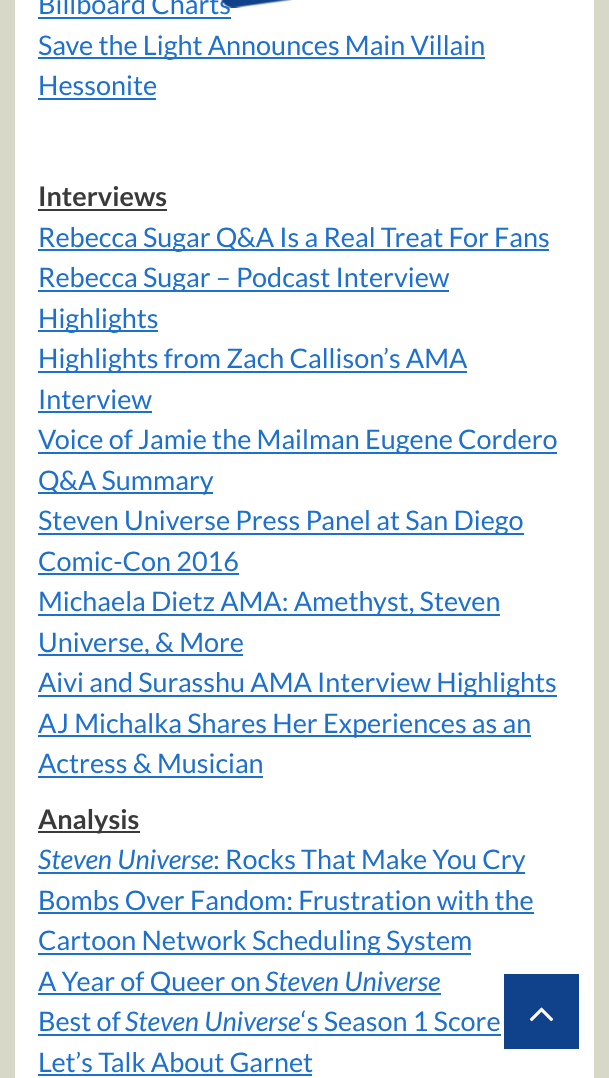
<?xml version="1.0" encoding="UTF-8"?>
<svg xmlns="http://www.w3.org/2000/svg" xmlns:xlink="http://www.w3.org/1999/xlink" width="609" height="1078">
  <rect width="100%" height="100%" fill="#d8d8c8" />
  <rect x="15" width="579" height="1078" fill="#ffffff" />
  <rect x="38" y="17" width="193" height="2" fill="#1e70cd" />
  <rect x="38" y="57" width="447" height="2" fill="#1e70cd" />
  <rect x="38" y="98" width="118" height="2" fill="#1e70cd" />
  <rect x="38" y="209" width="129" height="2" fill="#3a3a3a" />
  <rect x="38" y="249" width="511" height="2" fill="#1e70cd" />
  <rect x="38" y="290" width="411" height="2" fill="#1e70cd" />
  <rect x="38" y="330" width="120" height="2" fill="#1e70cd" />
  <rect x="38" y="371" width="429" height="2" fill="#1e70cd" />
  <rect x="38" y="411" width="114" height="2" fill="#1e70cd" />
  <rect x="38" y="452" width="519" height="2" fill="#1e70cd" />
  <rect x="38" y="492" width="175" height="2" fill="#1e70cd" />
  <rect x="38" y="533" width="486" height="2" fill="#1e70cd" />
  <rect x="38" y="573" width="201" height="2" fill="#1e70cd" />
  <rect x="38" y="614" width="462" height="2" fill="#1e70cd" />
  <rect x="38" y="654" width="205" height="2" fill="#1e70cd" />
  <rect x="38" y="695" width="519" height="2" fill="#1e70cd" />
  <rect x="38" y="735" width="493" height="2" fill="#1e70cd" />
  <rect x="38" y="776" width="225" height="2" fill="#1e70cd" />
  <rect x="38" y="831" width="102" height="2" fill="#3a3a3a" />
  <rect x="38" y="872" width="487" height="2" fill="#1e70cd" />
  <rect x="38" y="912" width="496" height="2" fill="#1e70cd" />
  <rect x="38" y="953" width="433" height="2" fill="#1e70cd" />
  <rect x="38" y="993" width="403" height="2" fill="#1e70cd" />
  <rect x="38" y="1034" width="463" height="2" fill="#1e70cd" />
  <rect x="38" y="1074" width="274" height="2" fill="#1e70cd" />
  <rect x="504" y="974" width="75" height="75" fill="#10428c" />
  <image x="529" y="1007" width="25" height="15" xlink:href="image2.png" />
  <text x="38" y="14" style="font-family: Lato; font-size: 27px; fill: #1e70cd">Billboard Charts</text>
  <text x="38" y="55" style="font-family: Lato; font-size: 27px; fill: #1e70cd">Save the Light Announces Main Villain</text>
  <text x="38" y="95" style="font-family: Lato; font-size: 27px; fill: #1e70cd">Hessonite</text>
  <text x="38" y="206" style="font-family: Lato; font-size: 27px; font-weight: bold; fill: #3a3a3a">Interviews</text>
  <text x="38" y="247" style="font-family: Lato; font-size: 27px; fill: #1e70cd">Rebecca Sugar Q&amp;A Is a Real Treat For Fans</text>
  <text x="38" y="287" style="font-family: Lato; font-size: 27px; fill: #1e70cd">Rebecca Sugar – Podcast Interview</text>
  <text x="38" y="328" style="font-family: Lato; font-size: 27px; fill: #1e70cd">Highlights</text>
  <text x="38" y="368" style="font-family: Lato; font-size: 27px; fill: #1e70cd">Highlights from Zach Callison’s AMA</text>
  <text x="38" y="409" style="font-family: Lato; font-size: 27px; fill: #1e70cd">Interview</text>
  <text x="38" y="449" style="font-family: Lato; font-size: 27px; fill: #1e70cd">Voice of Jamie the Mailman Eugene Cordero</text>
  <text x="38" y="490" style="font-family: Lato; font-size: 27px; fill: #1e70cd">Q&amp;A Summary</text>
  <text x="38" y="530" style="font-family: Lato; font-size: 27px; fill: #1e70cd">Steven Universe Press Panel at San Diego</text>
  <text x="38" y="571" style="font-family: Lato; font-size: 27px; fill: #1e70cd">Comic-Con 2016</text>
  <text x="38" y="611" style="font-family: Lato; font-size: 27px; fill: #1e70cd">Michaela Dietz AMA: Amethyst, Steven</text>
  <text x="38" y="652" style="font-family: Lato; font-size: 27px; fill: #1e70cd">Universe, &amp; More</text>
  <text x="38" y="692" style="font-family: Lato; font-size: 27px; fill: #1e70cd">Aivi and Surasshu AMA Interview Highlights</text>
  <text x="38" y="733" style="font-family: Lato; font-size: 27px; fill: #1e70cd">AJ Michalka Shares Her Experiences as an</text>
  <text x="38" y="773" style="font-family: Lato; font-size: 27px; fill: #1e70cd">Actress &amp; Musician</text>
  <text x="38" y="829" style="font-family: Lato; font-size: 27px; font-weight: bold; fill: #3a3a3a">Analysis</text>
  <text x="38" y="869" style="font-family: Lato; font-size: 27px; font-style: italic; fill: #1e70cd">Steven Universe</text>
  <text x="213" y="869" style="font-family: Lato; font-size: 27px; fill: #1e70cd">: Rocks That Make You Cry</text>
  <text x="38" y="910" style="font-family: Lato; font-size: 27px; fill: #1e70cd">Bombs Over Fandom: Frustration with the</text>
  <text x="38" y="950" style="font-family: Lato; font-size: 27px; fill: #1e70cd">Cartoon Network Scheduling System</text>
  <text x="38" y="991" style="font-family: Lato; font-size: 27px; fill: #1e70cd">A Year of Queer on</text>
  <text x="265" y="991" style="font-family: Lato; font-size: 27px; font-style: italic; fill: #1e70cd">Steven Universe</text>
  <text x="38" y="1031" style="font-family: Lato; font-size: 27px; fill: #1e70cd">Best of</text>
  <text x="125" y="1031" style="font-family: Lato; font-size: 27px; font-style: italic; fill: #1e70cd">Steven Universe</text>
  <text x="301" y="1031" style="font-family: Lato; font-size: 27px; fill: #1e70cd">‘s Season 1 Score</text>
  <text x="38" y="1072" style="font-family: Lato; font-size: 27px; fill: #1e70cd">Let’s Talk About Garnet</text>
  <image x="220" y="0" width="72" height="8" xlink:href="image1.png" />
</svg>
